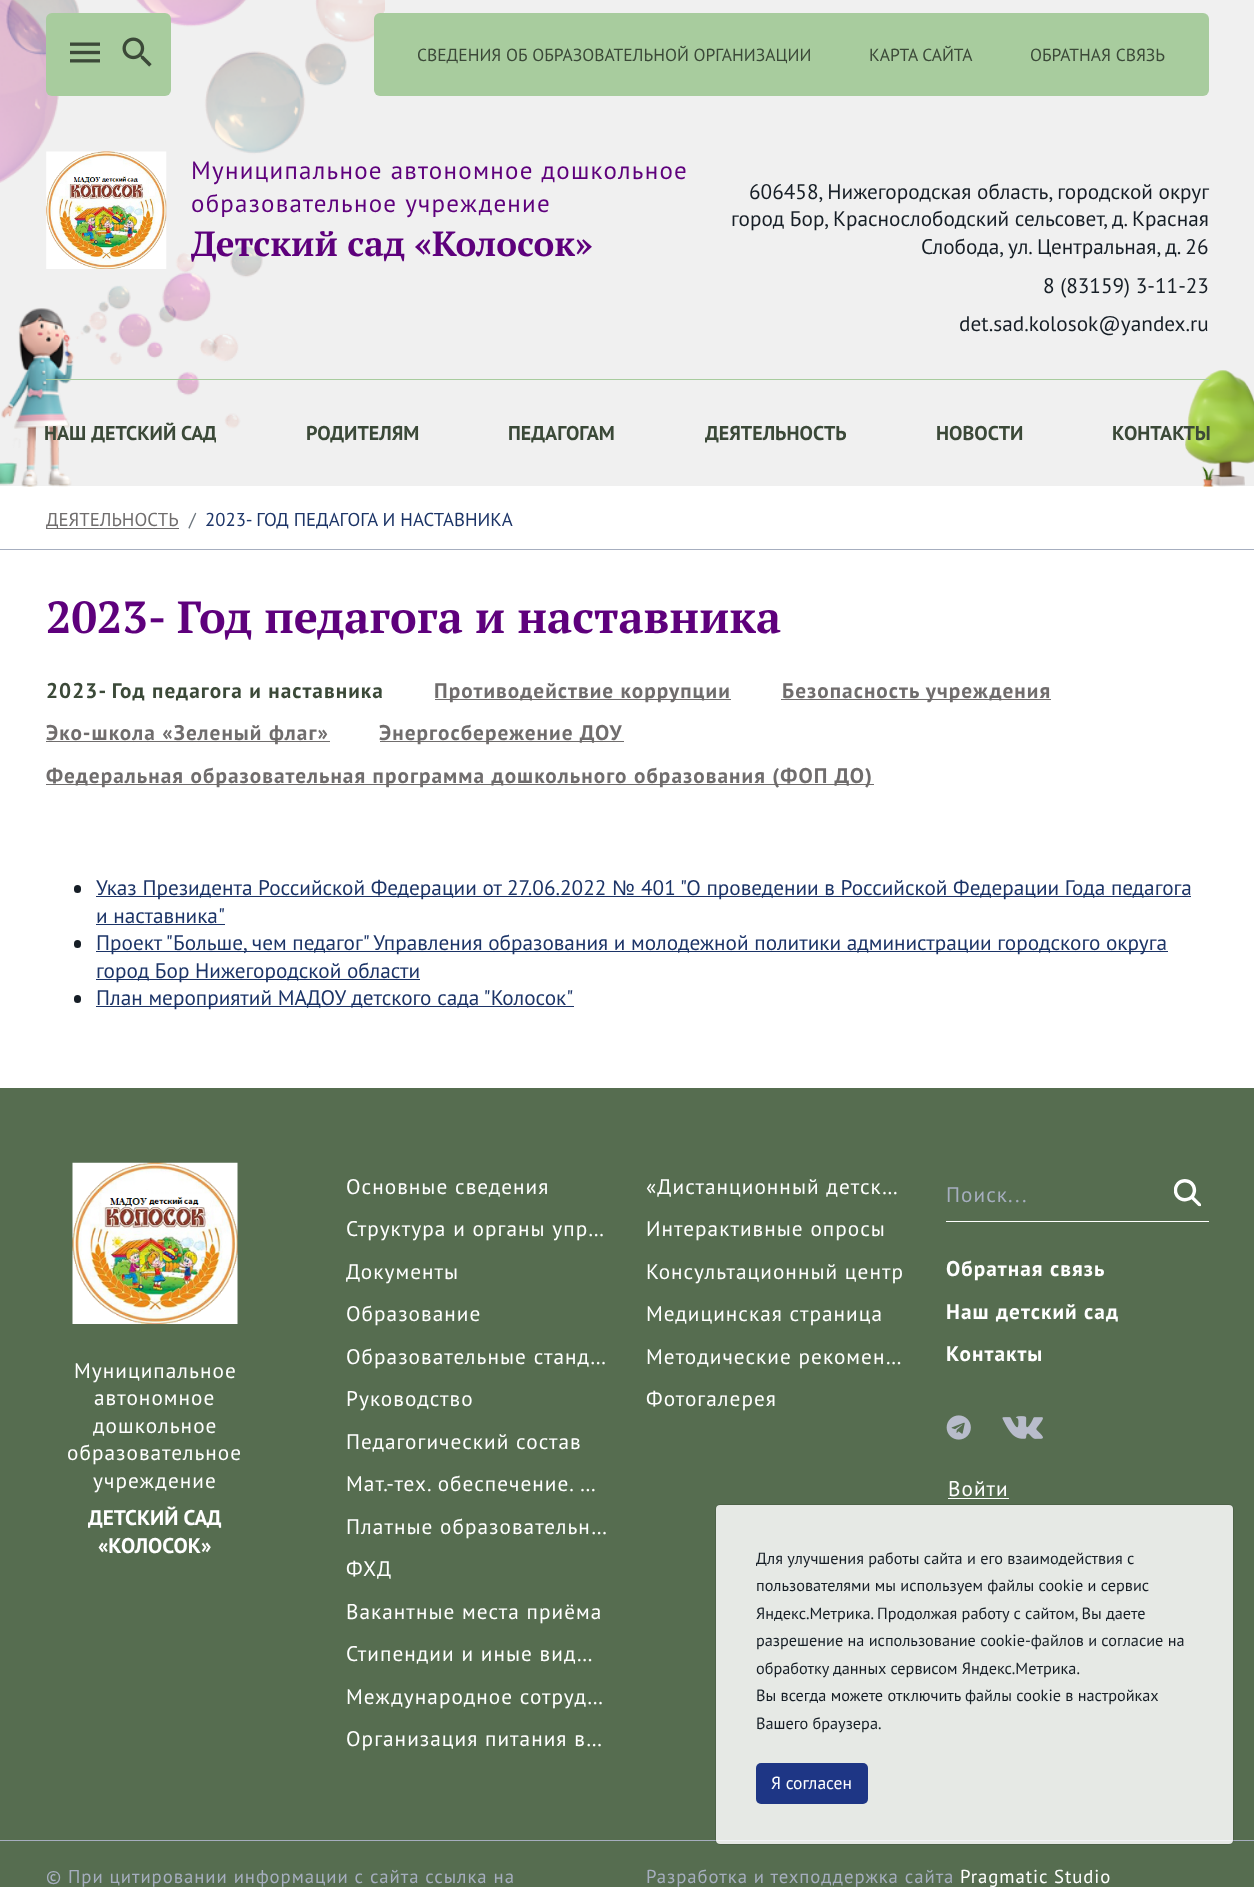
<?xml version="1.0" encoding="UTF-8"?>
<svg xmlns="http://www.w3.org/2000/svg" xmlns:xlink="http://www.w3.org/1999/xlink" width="1254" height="1887">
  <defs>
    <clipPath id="clip1"><rect x="44" y="420" width="172" height="26" /></clipPath>
    <clipPath id="clip2"><rect x="705" y="420" width="141" height="26" /></clipPath>
  </defs>
  <rect width="100%" height="100%" fill="#ffffff" />
  <rect width="1254" height="486" fill="#f0f0f0" />
  <image x="0" y="0" width="385" height="183" xlink:href="image1.png" />
  <rect x="46" y="13" width="125" height="83" rx="6" fill="#a8cc9e" />
  <image x="70" y="42" width="30" height="21" xlink:href="image2.png" />
  <image x="122" y="37" width="30" height="30" xlink:href="image3.png" />
  <rect x="374" y="13" width="835" height="83" rx="6" fill="#a8cc9e" />
  <image x="0" y="245" width="1254" height="242" xlink:href="image4.png" />
  <image x="46" y="151" width="121" height="118" xlink:href="image5.png" />
  <rect x="46" y="379" width="1163" height="1" fill="#a8cc9e" />
  <rect y="549" width="1254" height="1" fill="#a6aebf" />
  <rect x="46" y="528" width="133" height="1" fill="#706d6d" />
  <rect x="435" y="699" width="296" height="1" fill="#706d6d" />
  <rect x="781" y="699" width="270" height="1" fill="#706d6d" />
  <rect x="46" y="741" width="284" height="1" fill="#706d6d" />
  <rect x="380" y="741" width="244" height="1" fill="#706d6d" />
  <rect x="46" y="784" width="828" height="1" fill="#706d6d" />
  <rect x="74" y="885" width="7" height="8" rx="3.5" fill="#161e26" />
  <rect x="96" y="896" width="1095" height="1" fill="#1c3467" />
  <rect x="96" y="924" width="129" height="1" fill="#1c3467" />
  <rect x="74" y="940" width="7" height="8" rx="3.5" fill="#161e26" />
  <rect x="96" y="951" width="1072" height="1" fill="#1c3467" />
  <rect x="96" y="979" width="324" height="1" fill="#1c3467" />
  <rect x="74" y="995" width="7" height="8" rx="3.5" fill="#161e26" />
  <rect x="96" y="1006" width="478" height="1" fill="#1c3467" />
  <rect y="1088" width="1254" height="799" fill="#566d50" />
  <image x="72" y="1162" width="166" height="162" xlink:href="image6.png" />
  <rect x="946" y="1221" width="263" height="1" fill="#ffffff" />
  <image x="1174" y="1179" width="27" height="28" xlink:href="image7.png" />
  <image x="946" y="1415" width="25" height="25" xlink:href="image8.png" />
  <image x="1002" y="1416" width="41" height="23" xlink:href="image9.png" />
  <rect x="948" y="1498" width="61" height="1" fill="#ffffff" />
  <rect y="1840" width="1254" height="1" fill="#a6aebf" />
  <rect x="716" y="1505" width="517" height="339" rx="4" fill="#ffffff" fill-opacity="0.85" />
  <rect x="715.5" y="1504.5" width="518" height="340" rx="4.5" fill="none" stroke="#000000" stroke-opacity="0.1" />
  <rect x="756" y="1763" width="112" height="41" rx="5" fill="#1e3685" />
  <text x="417" y="61" style="font-family: PT Sans; font-size: 17.5px; fill: #3b4938">СВЕДЕНИЯ ОБ ОБРАЗОВАТЕЛЬНОЙ ОРГАНИЗАЦИИ</text>
  <text x="869" y="61" style="font-family: PT Sans; font-size: 17.5px; fill: #3b4938">КАРТА САЙТА</text>
  <text x="1030" y="61" style="font-family: PT Sans; font-size: 17.5px; fill: #3b4938">ОБРАТНАЯ СВЯЗЬ</text>
  <text x="191" y="179" style="font-family: PT Sans; font-size: 25px; letter-spacing: 1.25px; fill: #5e007c">Муниципальное автономное дошкольное</text>
  <text x="191" y="212" style="font-family: PT Sans; font-size: 25px; letter-spacing: 1.25px; fill: #5e007c">образовательное учреждение</text>
  <text x="191" y="256" style="font-family: PT Serif; font-size: 35px; font-weight: bold; fill: #5e007c">Детский сад «Колосок»</text>
  <text x="749" y="199" style="font-family: PT Sans; font-size: 21.25px; fill: #161e26">606458, Нижегородская область, городской округ</text>
  <text x="731" y="226" style="font-family: PT Sans; font-size: 21.25px; fill: #161e26">город Бор, Краснослободский сельсовет, д. Красная</text>
  <text x="921" y="254" style="font-family: PT Sans; font-size: 21.25px; fill: #161e26">Слобода, ул. Центральная, д. 26</text>
  <text x="1043" y="293" style="font-family: PT Sans; font-size: 21.25px; fill: #161e26">8 (83159) 3-11-23</text>
  <text x="959" y="331" style="font-family: PT Sans; font-size: 21.25px; fill: #161e26">det.sad.kolosok@yandex.ru</text>
  <g clip-path="url(#clip1)">
    <text x="44" y="440" style="font-family: PT Sans; font-size: 20px; font-weight: bold; fill: #3b4938">НАШ ДЕТСКИЙ САД</text>
  </g>
  <text x="306" y="440" style="font-family: PT Sans; font-size: 20px; font-weight: bold; fill: #3b4938">РОДИТЕЛЯМ</text>
  <text x="508" y="440" style="font-family: PT Sans; font-size: 20px; font-weight: bold; fill: #3b4938">ПЕДАГОГАМ</text>
  <g clip-path="url(#clip2)">
    <text x="705" y="440" style="font-family: PT Sans; font-size: 20px; font-weight: bold; fill: #3b4938">ДЕЯТЕЛЬНОСТЬ</text>
  </g>
  <text x="936" y="440" style="font-family: PT Sans; font-size: 20px; font-weight: bold; fill: #3b4938">НОВОСТИ</text>
  <text x="1112" y="440" style="font-family: PT Sans; font-size: 20px; font-weight: bold; fill: #3b4938">КОНТАКТЫ</text>
  <text x="46" y="526" style="font-family: PT Sans; font-size: 18.75px; fill: #706d6d">ДЕЯТЕЛЬНОСТЬ</text>
  <text x="189" y="526" style="font-family: PT Sans; font-size: 18.75px; fill: #6c757d">/</text>
  <text x="205" y="526" style="font-family: PT Sans; font-size: 18.75px; fill: #1c3467">2023- ГОД ПЕДАГОГА И НАСТАВНИКА</text>
  <text x="46" y="633" style="font-family: PT Serif; font-size: 45px; font-weight: bold; fill: #5e007c">2023- Год педагога и наставника</text>
  <text x="46" y="698" style="font-family: PT Sans; font-size: 21.25px; font-weight: bold; letter-spacing: 1.05px; fill: #3b4938">2023- Год педагога и наставника</text>
  <text x="434" y="698" style="font-family: PT Sans; font-size: 21.25px; font-weight: bold; letter-spacing: 1.05px; fill: #706d6d">Противодействие коррупции</text>
  <text x="782" y="698" style="font-family: PT Sans; font-size: 21.25px; font-weight: bold; letter-spacing: 1.05px; fill: #706d6d">Безопасность учреждения</text>
  <text x="46" y="740" style="font-family: PT Sans; font-size: 21.25px; font-weight: bold; letter-spacing: 1.05px; fill: #706d6d">Эко-школа «Зеленый флаг»</text>
  <text x="379" y="740" style="font-family: PT Sans; font-size: 21.25px; font-weight: bold; letter-spacing: 1.05px; fill: #706d6d">Энергосбережение ДОУ</text>
  <text x="46" y="783" style="font-family: PT Sans; font-size: 21.25px; font-weight: bold; letter-spacing: 1.05px; fill: #706d6d">Федеральная образовательная программа дошкольного образования (ФОП ДО)</text>
  <text x="96" y="895" style="font-family: PT Sans; font-size: 21.25px; fill: #1c3467">Указ Президента Российской Федерации от 27.06.2022</text>
  <text x="612" y="895" style="font-family: Liberation Sans; font-size: 21.25px; fill: #1c3467">№</text>
  <text x="641" y="895" style="font-family: PT Sans; font-size: 21.25px; fill: #1c3467">401 "О проведении в Российской Федерации Года педагога</text>
  <text x="96" y="923" style="font-family: PT Sans; font-size: 21.25px; fill: #1c3467">и наставника"</text>
  <text x="96" y="950" style="font-family: PT Sans; font-size: 21.25px; fill: #1c3467">Проект "Больше, чем педагог" Управления образования и молодежной политики администрации городского округа</text>
  <text x="96" y="978" style="font-family: PT Sans; font-size: 21.25px; fill: #1c3467">город Бор Нижегородской области</text>
  <text x="96" y="1005" style="font-family: PT Sans; font-size: 21.25px; fill: #1c3467">План мероприятий МАДОУ детского сада "Колосок"</text>
  <text x="74" y="1378" style="font-family: PT Sans; font-size: 21.25px; letter-spacing: 1.05px; fill: #ffffff">Муниципальное</text>
  <text x="94" y="1405" style="font-family: PT Sans; font-size: 21.25px; letter-spacing: 1.05px; fill: #ffffff">автономное</text>
  <text x="93" y="1433" style="font-family: PT Sans; font-size: 21.25px; letter-spacing: 1.05px; fill: #ffffff">дошкольное</text>
  <text x="67" y="1460" style="font-family: PT Sans; font-size: 21.25px; letter-spacing: 1.05px; fill: #ffffff">образовательное</text>
  <text x="93" y="1488" style="font-family: PT Sans; font-size: 21.25px; letter-spacing: 1.05px; fill: #ffffff">учреждение</text>
  <text x="88" y="1525" style="font-family: PT Sans; font-size: 21.25px; font-weight: bold; fill: #ffffff">ДЕТСКИЙ САД</text>
  <text x="98" y="1553" style="font-family: PT Sans; font-size: 21.25px; font-weight: bold; fill: #ffffff">«КОЛОСОК»</text>
  <text x="346" y="1194" style="font-family: PT Sans; font-size: 21.25px; letter-spacing: 1.05px; fill: #ffffff">Основные сведения</text>
  <text x="346" y="1236" style="font-family: PT Sans; font-size: 21.25px; letter-spacing: 1.05px; fill: #ffffff">Структура и органы упр…</text>
  <text x="346" y="1279" style="font-family: PT Sans; font-size: 21.25px; letter-spacing: 1.05px; fill: #ffffff">Документы</text>
  <text x="346" y="1321" style="font-family: PT Sans; font-size: 21.25px; letter-spacing: 1.05px; fill: #ffffff">Образование</text>
  <text x="346" y="1364" style="font-family: PT Sans; font-size: 21.25px; letter-spacing: 1.05px; fill: #ffffff">Образовательные станд…</text>
  <text x="346" y="1406" style="font-family: PT Sans; font-size: 21.25px; letter-spacing: 1.05px; fill: #ffffff">Руководство</text>
  <text x="346" y="1449" style="font-family: PT Sans; font-size: 21.25px; letter-spacing: 1.05px; fill: #ffffff">Педагогический состав</text>
  <text x="346" y="1491" style="font-family: PT Sans; font-size: 21.25px; letter-spacing: 1.05px; fill: #ffffff">Мат.-тех. обеспечение. …</text>
  <text x="346" y="1534" style="font-family: PT Sans; font-size: 21.25px; letter-spacing: 1.05px; fill: #ffffff">Платные образовательн…</text>
  <text x="346" y="1576" style="font-family: PT Sans; font-size: 21.25px; letter-spacing: 1.05px; fill: #ffffff">ФХД</text>
  <text x="346" y="1619" style="font-family: PT Sans; font-size: 21.25px; letter-spacing: 1.05px; fill: #ffffff">Вакантные места приёма</text>
  <text x="346" y="1661" style="font-family: PT Sans; font-size: 21.25px; letter-spacing: 1.05px; fill: #ffffff">Стипендии и иные вид…</text>
  <text x="346" y="1704" style="font-family: PT Sans; font-size: 21.25px; letter-spacing: 1.05px; fill: #ffffff">Международное сотруд…</text>
  <text x="346" y="1746" style="font-family: PT Sans; font-size: 21.25px; letter-spacing: 1.05px; fill: #ffffff">Организация питания в…</text>
  <text x="646" y="1194" style="font-family: PT Sans; font-size: 21.25px; letter-spacing: 1.05px; fill: #ffffff">«Дистанционный детск…</text>
  <text x="646" y="1236" style="font-family: PT Sans; font-size: 21.25px; letter-spacing: 1.05px; fill: #ffffff">Интерактивные опросы</text>
  <text x="646" y="1279" style="font-family: PT Sans; font-size: 21.25px; letter-spacing: 1.05px; fill: #ffffff">Консультационный центр</text>
  <text x="646" y="1321" style="font-family: PT Sans; font-size: 21.25px; letter-spacing: 1.05px; fill: #ffffff">Медицинская страница</text>
  <text x="646" y="1364" style="font-family: PT Sans; font-size: 21.25px; letter-spacing: 1.05px; fill: #ffffff">Методические рекомен…</text>
  <text x="646" y="1406" style="font-family: PT Sans; font-size: 21.25px; letter-spacing: 1.05px; fill: #ffffff">Фотогалерея</text>
  <text x="946" y="1202" style="font-family: PT Sans; font-size: 21.25px; letter-spacing: 1.05px; fill: #a6aebf">Поиск...</text>
  <text x="946" y="1276" style="font-family: PT Sans; font-size: 21.25px; font-weight: bold; letter-spacing: 1.05px; fill: #ffffff">Обратная связь</text>
  <text x="946" y="1319" style="font-family: PT Sans; font-size: 21.25px; font-weight: bold; letter-spacing: 1.05px; fill: #ffffff">Наш детский сад</text>
  <text x="946" y="1361" style="font-family: PT Sans; font-size: 21.25px; font-weight: bold; letter-spacing: 1.05px; fill: #ffffff">Контакты</text>
  <text x="948" y="1496" style="font-family: PT Sans; font-size: 21.25px; letter-spacing: 1.05px; fill: #ffffff">Войти</text>
  <text x="46" y="1883" style="font-family: PT Sans; font-size: 18.75px; letter-spacing: 0.95px; fill: #a6aebf">© При цитировании информации с сайта ссылка на</text>
  <text x="646" y="1883" style="font-family: PT Sans; font-size: 18.75px; letter-spacing: 0.95px; fill: #a6aebf">Разработка и техподдержка сайта</text>
  <text x="960" y="1883" style="font-family: PT Sans; font-size: 18.75px; letter-spacing: 0.95px; fill: #ffffff">Pragmatic Studio</text>
  <text x="756" y="1564" style="font-family: PT Sans; font-size: 16.25px; fill: #161e26">Для улучшения работы сайта и его взаимодействия с</text>
  <text x="756" y="1591" style="font-family: PT Sans; font-size: 16.25px; fill: #161e26">пользователями мы используем файлы cookie и сервис</text>
  <text x="756" y="1619" style="font-family: PT Sans; font-size: 16.25px; fill: #161e26">Яндекс.Метрика. Продолжая работу с сайтом, Вы даете</text>
  <text x="756" y="1646" style="font-family: PT Sans; font-size: 16.25px; fill: #161e26">разрешение на использование cookie-файлов и согласие на</text>
  <text x="756" y="1674" style="font-family: PT Sans; font-size: 16.25px; fill: #161e26">обработку данных сервисом Яндекс.Метрика.</text>
  <text x="756" y="1701" style="font-family: PT Sans; font-size: 16.25px; fill: #161e26">Вы всегда можете отключить</text>
  <text x="965" y="1701" style="font-family: PT Sans; font-size: 16.25px; fill: #161e26">файлы cookie в настройках</text>
  <text x="756" y="1729" style="font-family: PT Sans; font-size: 16.25px; fill: #161e26">Вашего браузера.</text>
  <text x="771" y="1789" style="font-family: PT Sans; font-size: 17.5px; fill: #ffffff">Я согласен</text>
</svg>
